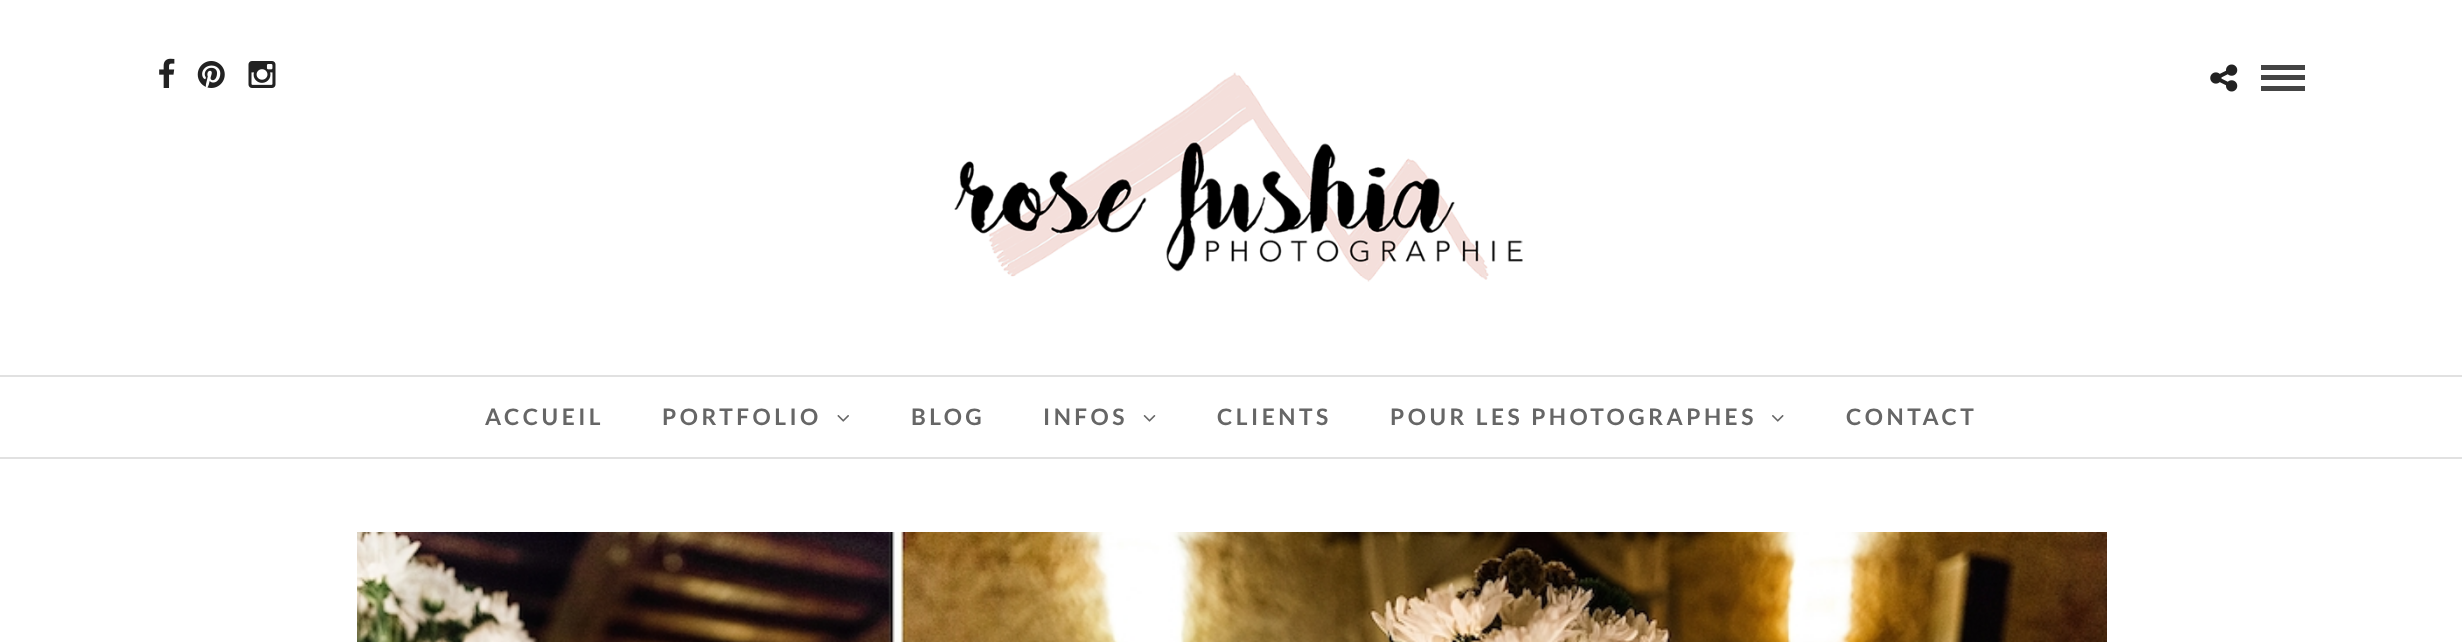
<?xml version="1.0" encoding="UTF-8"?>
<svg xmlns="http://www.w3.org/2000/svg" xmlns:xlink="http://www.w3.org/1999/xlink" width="2462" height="642">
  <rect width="100%" height="100%" fill="#ffffff" />
  <rect y="457" width="2462" height="2" fill="#e1e1e1" />
  <rect y="375" width="2462" height="2" fill="#e1e1e1" />
  <image x="159" y="58" width="16" height="30" xlink:href="image1.png" />
  <image x="197" y="61" width="28" height="27" xlink:href="image2.png" />
  <image x="248" y="61" width="28" height="27" xlink:href="image3.png" />
  <image x="954" y="72" width="569" height="210" xlink:href="image4.png" />
  <image x="2210" y="64" width="28" height="28" xlink:href="image5.png" />
  <rect x="2261" y="65" width="44" height="5" fill="#444444" />
  <rect x="2261" y="75" width="44" height="5" fill="#444444" />
  <rect x="2261" y="86" width="44" height="5" fill="#444444" />
  <image x="837" y="415" width="12" height="7" xlink:href="image6.png" />
  <image x="1143" y="415" width="13" height="7" xlink:href="image7.png" />
  <image x="1772" y="415" width="12" height="7" xlink:href="image8.png" />
  <image x="357" y="532" width="1750" height="110" xlink:href="image9.png" />
  <text x="485" y="425" style="font-family: Lato; font-size: 22.75px; font-weight: bold; letter-spacing: 3.5px; fill: #666666">ACCUEIL</text>
  <text x="662" y="425" style="font-family: Lato; font-size: 22.75px; font-weight: bold; letter-spacing: 3.5px; fill: #666666">PORTFOLIO</text>
  <text x="911" y="425" style="font-family: Lato; font-size: 22.75px; font-weight: bold; letter-spacing: 3.5px; fill: #666666">BLOG</text>
  <text x="1043" y="425" style="font-family: Lato; font-size: 22.75px; font-weight: bold; letter-spacing: 3.5px; fill: #666666">INFOS</text>
  <text x="1217" y="425" style="font-family: Lato; font-size: 22.75px; font-weight: bold; letter-spacing: 3.5px; fill: #666666">CLIENTS</text>
  <text x="1390" y="425" style="font-family: Lato; font-size: 22.75px; font-weight: bold; letter-spacing: 3.5px; fill: #666666">POUR LES PHOTOGRAPHES</text>
  <text x="1846" y="425" style="font-family: Lato; font-size: 22.75px; font-weight: bold; letter-spacing: 3.5px; fill: #666666">CONTACT</text>
</svg>
